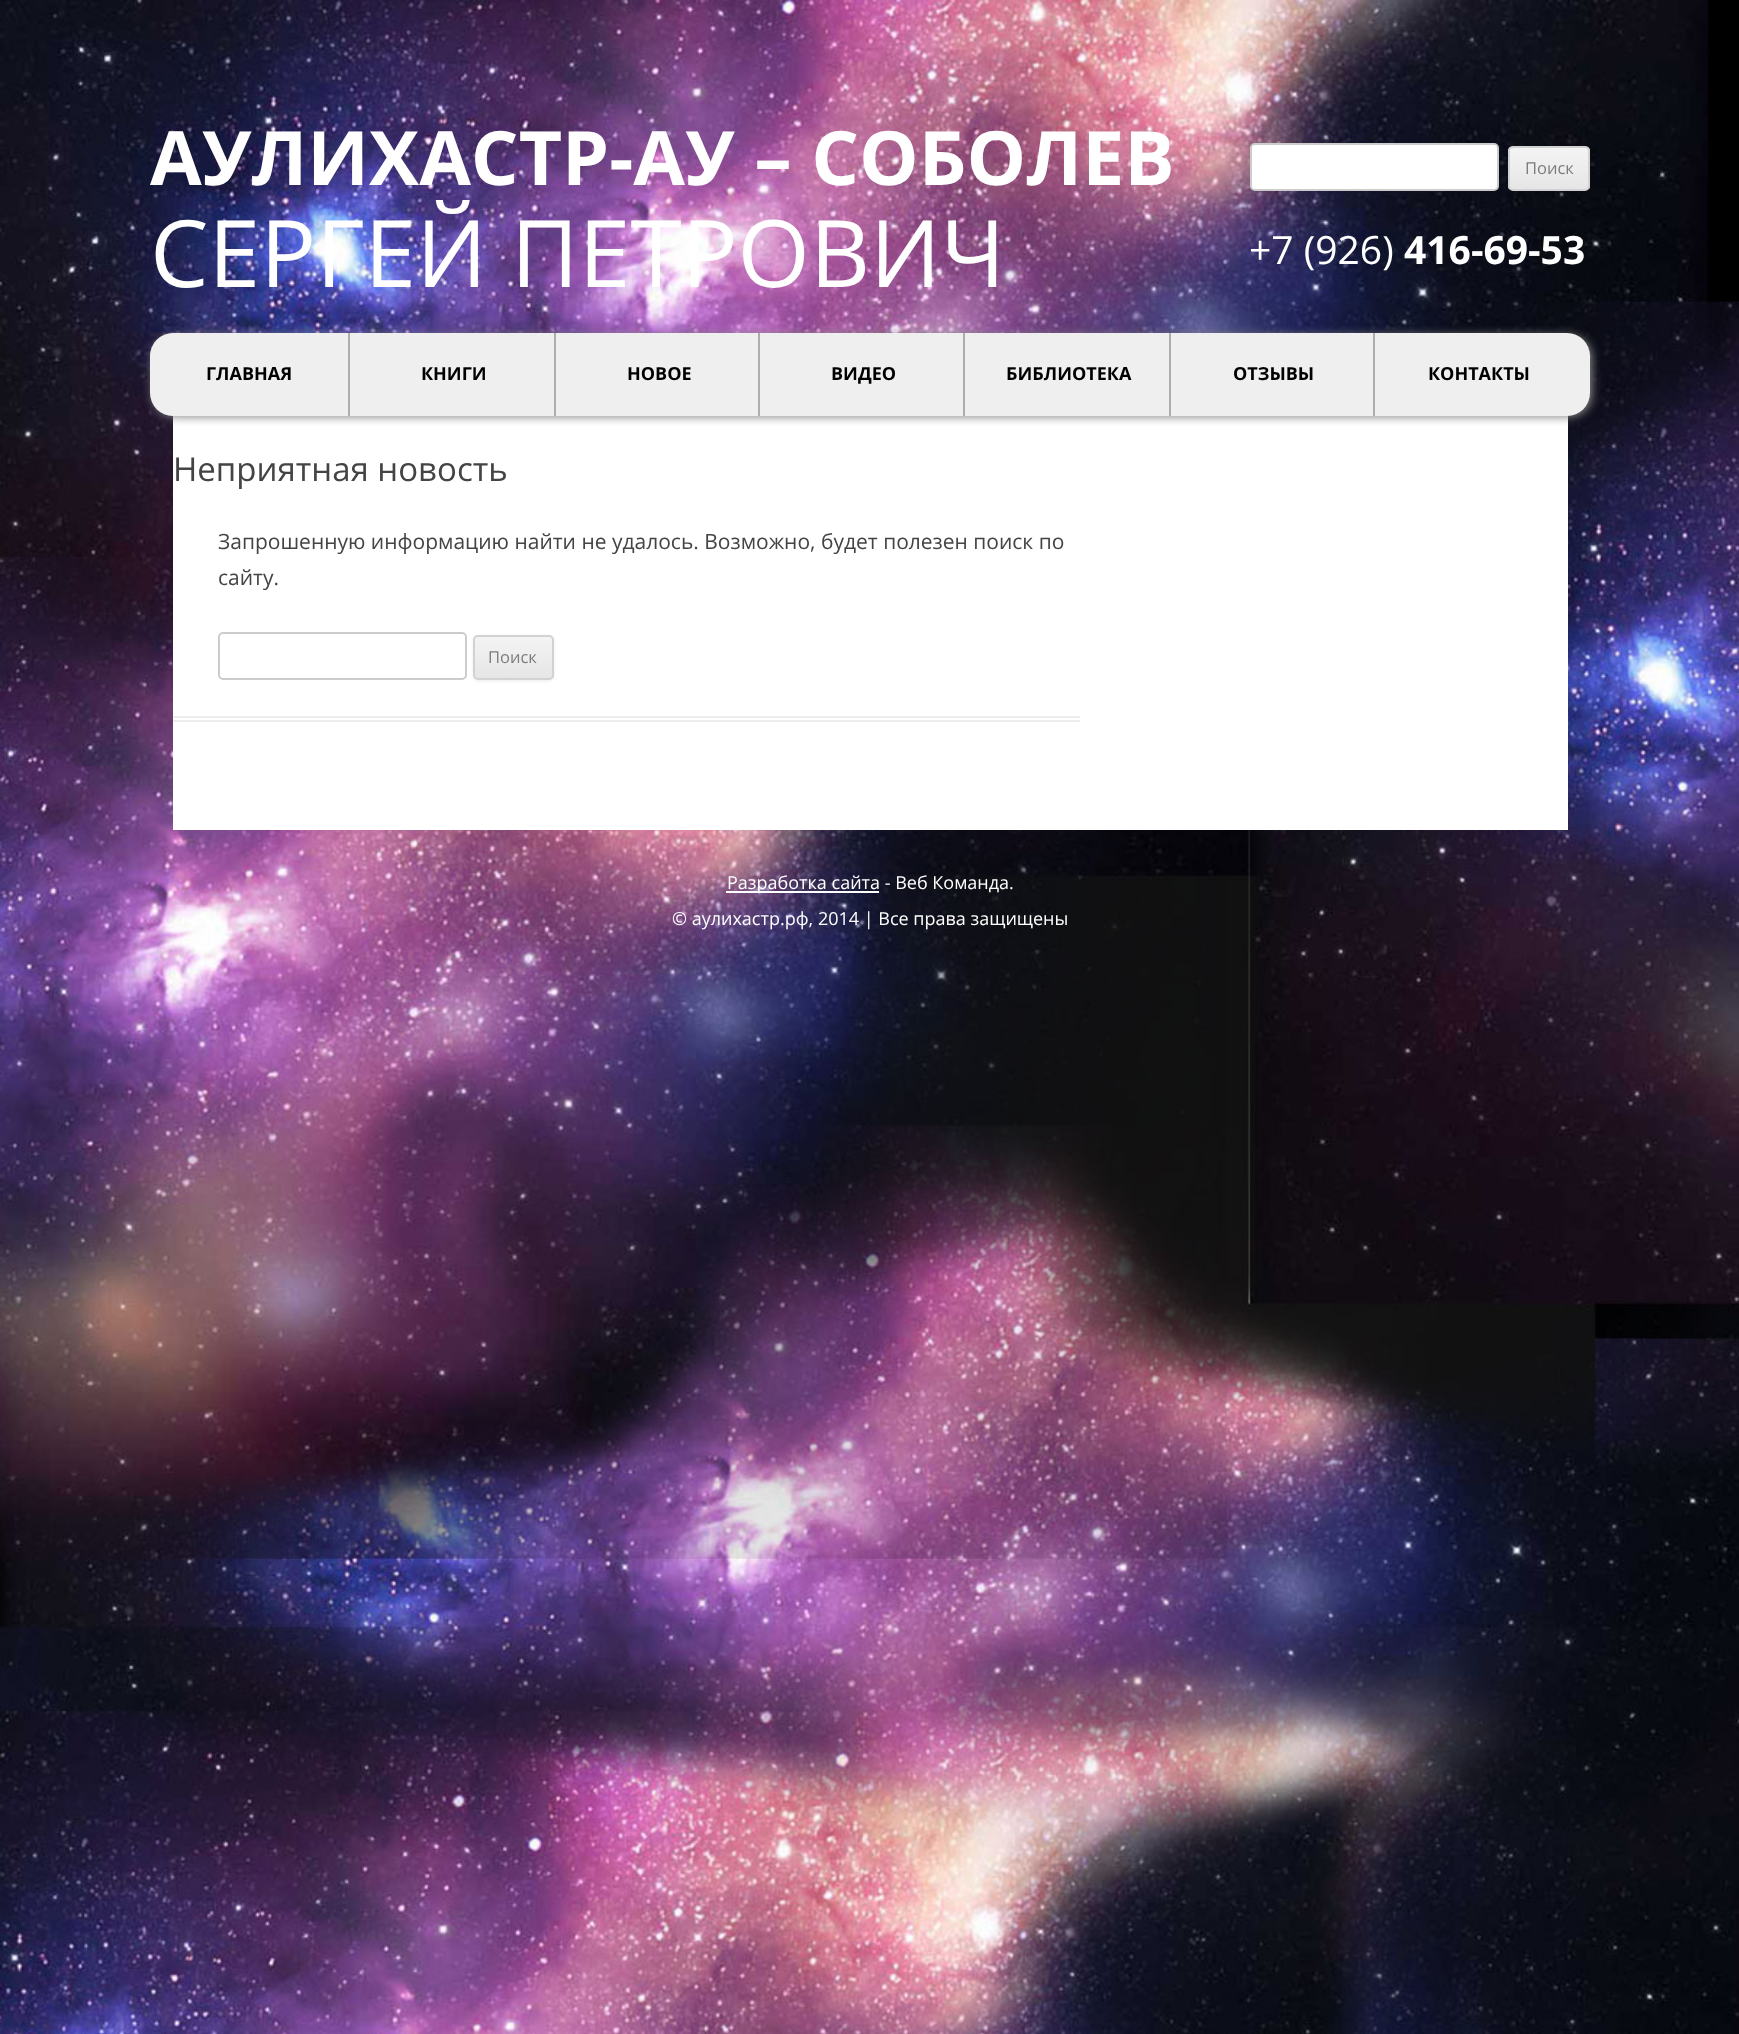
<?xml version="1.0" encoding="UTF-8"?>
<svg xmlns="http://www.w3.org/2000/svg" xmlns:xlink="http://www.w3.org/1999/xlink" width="1739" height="2034">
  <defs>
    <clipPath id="clip1"><rect x="1508" y="146" width="82" height="45" rx="5" /></clipPath>
    <linearGradient id="g1" gradientUnits="userSpaceOnUse" x1="1549" y1="147" x2="1549" y2="189"><stop offset="0" stop-color="#f4f4f4" /><stop offset="1" stop-color="#e6e6e6" /></linearGradient>
    <clipPath id="clip2"><rect x="473" y="635" width="81" height="45" rx="5" /></clipPath>
    <linearGradient id="g2" gradientUnits="userSpaceOnUse" x1="513" y1="636" x2="513" y2="678"><stop offset="0" stop-color="#f4f4f4" /><stop offset="1" stop-color="#e6e6e6" /></linearGradient>
  </defs>
  <rect width="100%" height="100%" fill="#ffffff" />
  <image x="0" y="0" width="1739" height="2034" xlink:href="image1.png" />
  <rect x="1251" y="144" width="247" height="46" rx="4" fill="#ffffff" stroke="#cccccc" stroke-width="2" />
  <g clip-path="url(#clip1)">
    <rect x="1508" y="147" width="82" height="42" fill="url(#g1)" />
  </g>
  <rect x="1509" y="147" width="80" height="43" rx="4" fill="none" stroke="#d2d2d2" stroke-width="2" />
  <rect x="173" y="415" width="1395" height="415" fill="#ffffff" />
  <rect x="152" y="335" width="1440" height="82" rx="23" fill="#888888" filter="blur(5px)" />
  <rect x="150" y="333" width="1440" height="83" rx="23" fill="#eeefee" />
  <rect x="348" y="333" width="2" height="83" fill="#adadad" />
  <rect x="554" y="333" width="2" height="83" fill="#adadad" />
  <rect x="758" y="333" width="2" height="83" fill="#adadad" />
  <rect x="963" y="333" width="2" height="83" fill="#adadad" />
  <rect x="1169" y="333" width="2" height="83" fill="#adadad" />
  <rect x="1373" y="333" width="2" height="83" fill="#adadad" />
  <rect x="173" y="716" width="907" height="2" fill="#ededed" />
  <rect x="173" y="720" width="907" height="2" fill="#ededed" />
  <rect x="219" y="633" width="247" height="46" rx="4" fill="none" stroke="#cccccc" stroke-width="2" />
  <rect x="473" y="636" width="81" height="45" rx="5" fill="#404040" fill-opacity="0.1" filter="blur(1.5px)" />
  <g clip-path="url(#clip2)">
    <rect x="473" y="636" width="81" height="42" fill="url(#g2)" />
  </g>
  <rect x="474" y="636" width="79" height="43" rx="4" fill="none" stroke="#d2d2d2" stroke-width="2" />
  <rect x="726" y="891" width="153" height="2" fill="#ffffff" />
  <text x="150" y="185" style="font-family: Open Sans; font-size: 75px; font-weight: bold; fill: #ffffff">АУЛИХАСТР-АУ – СОБОЛЕВ</text>
  <text x="1525" y="174" style="font-family: Open Sans; font-size: 16.5px; fill: #7c7c7c">Поиск</text>
  <text x="1249" y="264" style="font-family: Open Sans; font-size: 39px; fill: #ffffff">+7 (926)</text>
  <text x="1404" y="264" style="font-family: Open Sans; font-size: 39px; font-weight: bold; fill: #ffffff">416-69-53</text>
  <text x="150" y="287" style="font-family: Open Sans; font-size: 93px; fill: #ffffff">СЕРГЕЙ ПЕТРОВИЧ</text>
  <text x="206" y="380" style="font-family: Open Sans; font-size: 18px; font-weight: bold; fill: #000000">ГЛАВНАЯ</text>
  <text x="421" y="380" style="font-family: Open Sans; font-size: 18px; font-weight: bold; fill: #000000">КНИГИ</text>
  <text x="627" y="380" style="font-family: Open Sans; font-size: 18px; font-weight: bold; fill: #000000">НОВОЕ</text>
  <text x="831" y="380" style="font-family: Open Sans; font-size: 18px; font-weight: bold; fill: #000000">ВИДЕО</text>
  <text x="1006" y="380" style="font-family: Open Sans; font-size: 18px; font-weight: bold; fill: #000000">БИБЛИОТЕКА</text>
  <text x="1233" y="380" style="font-family: Open Sans; font-size: 18px; font-weight: bold; fill: #000000">ОТЗЫВЫ</text>
  <text x="1428" y="380" style="font-family: Open Sans; font-size: 18px; font-weight: bold; fill: #000000">КОНТАКТЫ</text>
  <text x="173" y="481" style="font-family: Open Sans; font-size: 33px; fill: #444444">Неприятная новость</text>
  <text x="218" y="549" style="font-family: Open Sans; font-size: 21px; fill: #444444">Запрошенную информацию найти не удалось. Возможно, будет полезен поиск по</text>
  <text x="218" y="585" style="font-family: Open Sans; font-size: 21px; fill: #444444">сайту.</text>
  <text x="488" y="663" style="font-family: Open Sans; font-size: 16.5px; fill: #7c7c7c">Поиск</text>
  <text x="727" y="889" style="font-family: Open Sans; font-size: 18px; fill: #ffffff">Разработка сайта - Веб Команда.</text>
  <text x="672" y="925" style="font-family: Open Sans; font-size: 18px; fill: #ffffff">© аулихастр.рф, 2014 | Все права защищены</text>
</svg>
